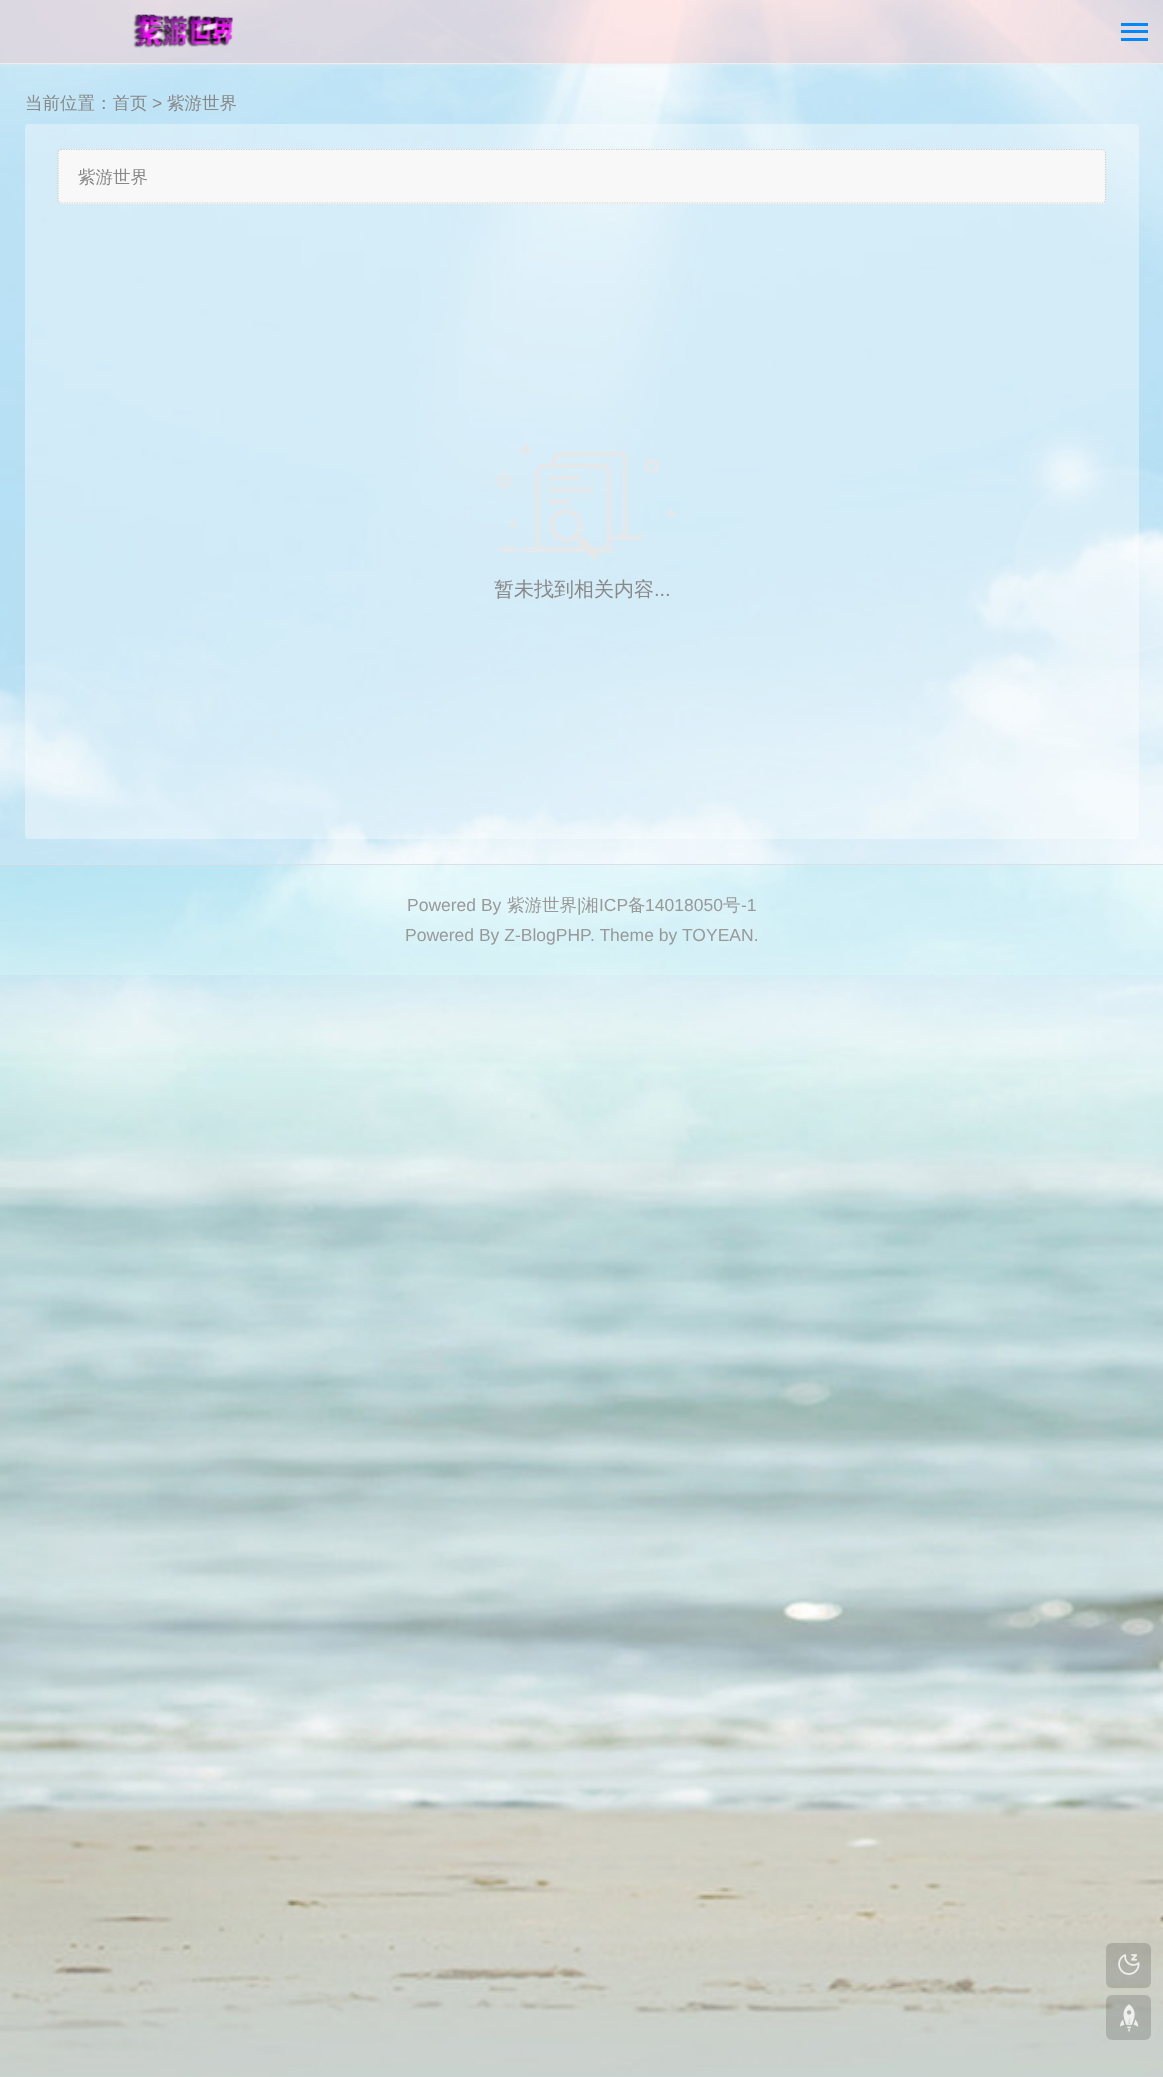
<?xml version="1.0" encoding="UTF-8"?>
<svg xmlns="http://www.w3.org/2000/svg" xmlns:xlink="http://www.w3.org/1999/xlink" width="1163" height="2077">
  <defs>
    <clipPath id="clip1"><rect x="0" y="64" width="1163" height="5" /></clipPath>
  </defs>
  <rect width="100%" height="100%" fill="#ffffff" />
  <image x="0" y="0" width="1163" height="2077" xlink:href="image1.png" />
  <rect width="1163" height="864" fill="#ffffff" fill-opacity="0.36" />
  <g clip-path="url(#clip1)">
    <rect y="1" width="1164" height="64" fill="#eeeeee" fill-opacity="0.5" filter="blur(2.5px)" />
  </g>
  <rect width="1163" height="63" fill="#ffbdbd" fill-opacity="0.37" />
  <rect y="63" width="1163" height="1" fill="#eeeeee" />
  <image x="133" y="14" width="100" height="34" xlink:href="image2.png" />
  <rect x="1121" y="23" width="27" height="3" fill="#0188fb" />
  <rect x="1121" y="30" width="27" height="3" fill="#0188fb" />
  <rect x="1121" y="38" width="27" height="3" fill="#0188fb" />
  <rect x="25" y="124" width="1114" height="715" rx="4" fill="#ffffff" fill-opacity="0.36" />
  <rect x="58" y="149" width="1048" height="55" rx="4" fill="#f8f8f8" />
  <path d="M 61 149.5 h 1041.5 c 1.5 0 3 1.5 3 3 v 47.5 c 0 1.5 -1.5 3 -3 3 h -1041.5 c -1.5 0 -3 -1.5 -3 -3 v -47.5 c 0 -1.5 1.5 -3 3 -3 z" fill="none" stroke="#cccccc" stroke-width="1.2" stroke-dasharray="1.25 1.25" />
  <image x="496" y="442" width="180" height="117" xlink:href="image3.png" />
  <rect y="865" width="1163" height="110" fill="#d8fbf9" fill-opacity="0.36" />
  <rect y="864" width="1163" height="1" fill="#dbe0e8" />
  <rect x="1106" y="1943" width="45" height="45" rx="6" fill="#0a0a0a" fill-opacity="0.16" />
  <image x="1118" y="1954" width="22" height="21" xlink:href="image4.png" />
  <rect x="1106" y="1995" width="45" height="45" rx="6" fill="#0a0a0a" fill-opacity="0.16" />
  <image x="1120" y="2004" width="19" height="29" xlink:href="image5.png" />
  <text x="25" y="109" style="font-family: WenQuanYi Zen Hei; font-size: 17.5px; font-weight: 500; fill: #888888">当前位置：首页</text>
  <text x="152" y="109" style="font-family: Liberation Sans; font-size: 17.5px; fill: #888888">&gt;</text>
  <text x="167" y="109" style="font-family: WenQuanYi Zen Hei; font-size: 17.5px; font-weight: 500; fill: #888888">紫游世界</text>
  <text x="78" y="183" style="font-family: WenQuanYi Zen Hei; font-size: 17.5px; font-weight: 500; fill: #888888">紫游世界</text>
  <text x="494" y="596" style="font-family: WenQuanYi Zen Hei; font-size: 20px; font-weight: 500; fill: #888888">暂未找到相关内容</text>
  <text x="654" y="596" style="font-family: Liberation Sans; font-size: 20px; fill: #888888">...</text>
  <text x="407" y="911" style="font-family: Liberation Sans; font-size: 17.5px; fill: #999999">Powered By</text>
  <text x="507" y="911" style="font-family: WenQuanYi Zen Hei; font-size: 17.5px; font-weight: 500; fill: #999999">紫游世界</text>
  <text x="577" y="911" style="font-family: Liberation Sans; font-size: 17.5px; fill: #999999">|</text>
  <text x="581" y="911" style="font-family: WenQuanYi Zen Hei; font-size: 17.5px; font-weight: 500; fill: #999999">湘</text>
  <text x="599" y="911" style="font-family: Liberation Sans; font-size: 17.5px; fill: #999999">ICP</text>
  <text x="628" y="911" style="font-family: WenQuanYi Zen Hei; font-size: 17.5px; font-weight: 500; fill: #999999">备</text>
  <text x="645" y="911" style="font-family: Liberation Sans; font-size: 17.5px; fill: #999999">14018050</text>
  <text x="723" y="911" style="font-family: WenQuanYi Zen Hei; font-size: 17.5px; font-weight: 500; fill: #999999">号</text>
  <text x="741" y="911" style="font-family: Liberation Sans; font-size: 17.5px; fill: #999999">-1</text>
  <text x="405" y="941" style="font-family: Liberation Sans; font-size: 17.5px; fill: #999999">Powered By Z-BlogPHP</text>
  <text x="590" y="941" style="font-family: Liberation Sans; font-size: 17.5px; fill: #999999">. Theme by</text>
  <text x="682" y="941" style="font-family: Liberation Sans; font-size: 17.5px; fill: #999999">TOYEAN.</text>
</svg>
